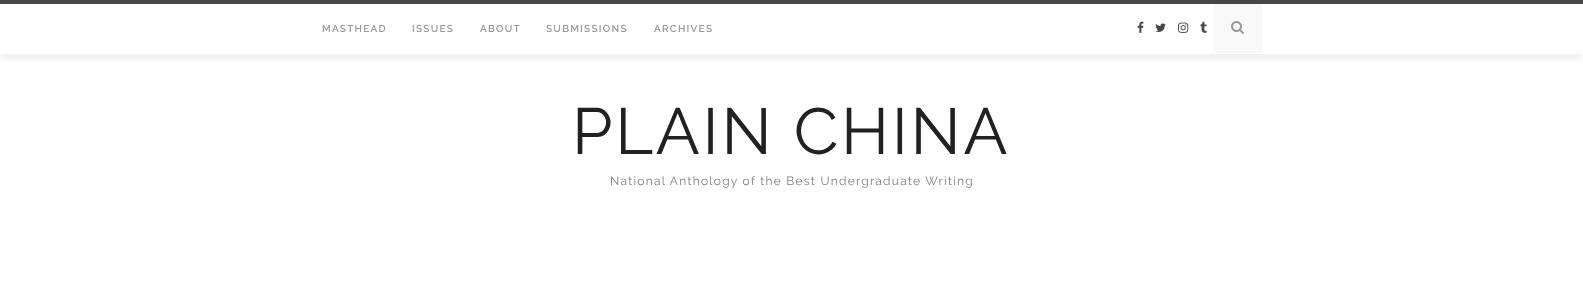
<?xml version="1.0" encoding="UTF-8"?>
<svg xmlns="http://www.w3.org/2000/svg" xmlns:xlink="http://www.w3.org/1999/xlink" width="1583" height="308">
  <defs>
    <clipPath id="clip1"><rect x="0" y="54" width="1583" height="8" /></clipPath>
  </defs>
  <rect width="100%" height="100%" fill="#ffffff" />
  <g clip-path="url(#clip1)">
    <rect y="5" width="1583" height="54" fill="#161616" fill-opacity="0.08" filter="blur(4px)" />
  </g>
  <rect width="1583" height="4" fill="#474747" />
  <image x="1137" y="21" width="7" height="12" xlink:href="image1.png" />
  <image x="1155" y="23" width="11" height="9" xlink:href="image2.png" />
  <image x="1178" y="22" width="11" height="11" xlink:href="image3.png" />
  <image x="1200" y="21" width="7" height="12" xlink:href="image4.png" />
  <rect x="1214" y="4" width="48" height="49" fill="#f9f9f9" />
  <image x="1231" y="21" width="13" height="13" xlink:href="image5.png" />
  <text x="322" y="32" style="font-family: Raleway; font-size: 10px; font-weight: 600; letter-spacing: 1.25px; fill: #999999">MASTHEAD</text>
  <text x="412" y="32" style="font-family: Raleway; font-size: 10px; font-weight: 600; letter-spacing: 1.25px; fill: #999999">ISSUES</text>
  <text x="480" y="32" style="font-family: Raleway; font-size: 10px; font-weight: 600; letter-spacing: 1.25px; fill: #999999">ABOUT</text>
  <text x="546" y="32" style="font-family: Raleway; font-size: 10px; font-weight: 600; letter-spacing: 1.25px; fill: #999999">SUBMISSIONS</text>
  <text x="654" y="32" style="font-family: Raleway; font-size: 10px; font-weight: 600; letter-spacing: 1.25px; fill: #999999">ARCHIVES</text>
  <text x="572" y="154" style="font-family: Raleway; font-size: 65px; letter-spacing: 2.75px; fill: #212121">PLAIN CHINA</text>
  <text x="610" y="185" style="font-family: Raleway; font-size: 12px; letter-spacing: 1.25px; fill: #808080">National Anthology of the Best Undergraduate Writing</text>
</svg>
